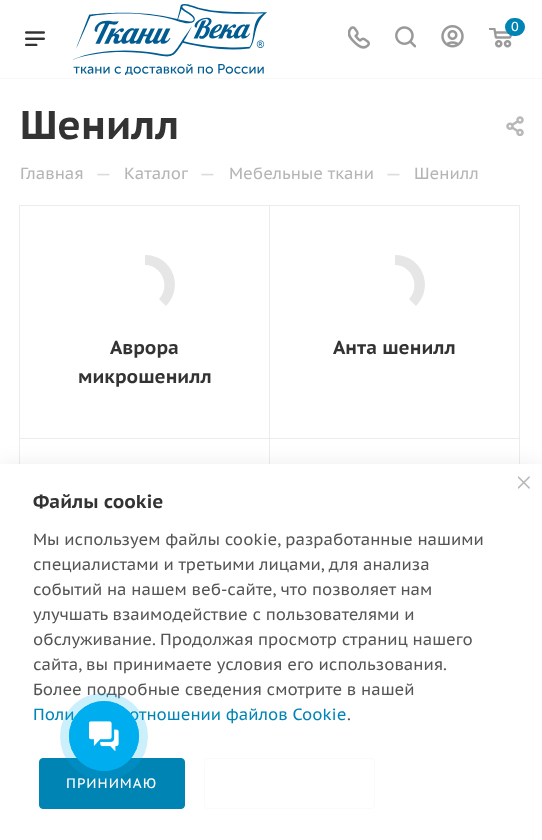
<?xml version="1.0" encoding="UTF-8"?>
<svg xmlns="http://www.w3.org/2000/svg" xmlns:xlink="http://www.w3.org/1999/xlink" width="542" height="840">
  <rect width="100%" height="100%" fill="#ffffff" />
  <rect y="78" width="542" height="1" fill="#f8f8f8" />
  <image x="73" y="4" width="194" height="71" xlink:href="image1.png" />
  <image x="348" y="26" width="22" height="23" xlink:href="image2.png" />
  <image x="395" y="26" width="21" height="22" xlink:href="image3.png" />
  <image x="441" y="25" width="23" height="23" xlink:href="image4.png" />
  <image x="489" y="28" width="23" height="20" xlink:href="image5.png" />
  <rect x="505" y="18" width="20" height="18" rx="9" fill="#0084b4" />
  <image x="25" y="31" width="20" height="15" xlink:href="image6.png" />
  <image x="506" y="116" width="18" height="20" xlink:href="image7.png" />
  <rect x="19.5" y="205.5" width="250" height="233" fill="none" stroke="#ececec" />
  <path d="M 145 255 c 27 0 40 32 21 51 l -7 -7 c 12 -12 3 -34 -14 -34 z" fill="#e6e6e6" />
  <rect x="269.5" y="205.5" width="250" height="233" fill="none" stroke="#ececec" />
  <path d="M 395 255 c 27 0 40 32 21 51 l -7 -7 c 12 -12 3 -34 -14 -34 z" fill="#e6e6e6" />
  <rect x="19.5" y="438.5" width="250" height="202" fill="none" stroke="#ececec" />
  <rect x="269.5" y="438.5" width="250" height="202" fill="none" stroke="#ececec" />
  <rect y="470" width="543" height="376" fill="#000000" fill-opacity="0.12" filter="blur(12.5px)" />
  <rect y="464" width="542" height="376" fill="#ffffff" />
  <image x="518" y="476" width="12" height="13" xlink:href="image8.png" />
  <rect x="39.5" y="758.5" width="145" height="50" rx="3.5" fill="#0084b4" stroke="#0084b4" />
  <rect x="204.5" y="758.5" width="170" height="50" rx="3.5" fill="none" stroke="#fafafa" />
  <text x="511" y="31" style="font-family: PT Sans Caption; font-size: 13px; fill: #ffffff">0</text>
  <text x="20" y="139" style="font-family: PT Sans Caption; font-size: 40px; font-weight: bold; fill: #333333">Шенилл</text>
  <text x="20" y="179" style="font-family: PT Sans Caption; font-size: 16.25px; fill: #b6b5b5">Главная</text>
  <text x="95" y="180" style="font-family: PT Sans Caption; font-size: 18.75px; fill: #dddddd">—</text>
  <text x="124" y="179" style="font-family: PT Sans Caption; font-size: 16.25px; fill: #b6b5b5">Каталог</text>
  <text x="199" y="180" style="font-family: PT Sans Caption; font-size: 18.75px; fill: #dddddd">—</text>
  <text x="229" y="179" style="font-family: PT Sans Caption; font-size: 16.25px; fill: #b6b5b5">Мебельные ткани</text>
  <text x="385" y="180" style="font-family: PT Sans Caption; font-size: 18.75px; fill: #dddddd">—</text>
  <text x="414" y="179" style="font-family: PT Sans Caption; font-size: 16.25px; fill: #b6b5b5">Шенилл</text>
  <text x="110" y="354" style="font-family: PT Sans Caption; font-size: 18.75px; font-weight: bold; fill: #333333">Аврора</text>
  <text x="78" y="383" style="font-family: PT Sans Caption; font-size: 18.75px; font-weight: bold; fill: #333333">микрошенилл</text>
  <text x="333" y="354" style="font-family: PT Sans Caption; font-size: 18.75px; font-weight: bold; fill: #333333">Анта шенилл</text>
  <text x="33" y="508" style="font-family: PT Sans Caption; font-size: 18.75px; font-weight: bold; fill: #333333">Файлы cookie</text>
  <text x="33" y="545" style="font-family: PT Sans Caption; font-size: 16.25px; fill: #555555">Мы используем файлы cookie, разработанные нашими</text>
  <text x="33" y="570" style="font-family: PT Sans Caption; font-size: 16.25px; fill: #555555">специалистами и третьими лицами, для анализа</text>
  <text x="33" y="595" style="font-family: PT Sans Caption; font-size: 16.25px; fill: #555555">событий на нашем веб-сайте, что позволяет нам</text>
  <text x="33" y="620" style="font-family: PT Sans Caption; font-size: 16.25px; fill: #555555">улучшать взаимодействие с пользователями и</text>
  <text x="33" y="645" style="font-family: PT Sans Caption; font-size: 16.25px; fill: #555555">обслуживание. Продолжая просмотр страниц нашего</text>
  <text x="33" y="670" style="font-family: PT Sans Caption; font-size: 16.25px; fill: #555555">сайта, вы принимаете условия его использования.</text>
  <text x="33" y="695" style="font-family: PT Sans Caption; font-size: 16.25px; fill: #555555">Более подробные сведения смотрите в нашей</text>
  <text x="33" y="720" style="font-family: PT Sans Caption; font-size: 16.25px; fill: #0084b4">Поли</text>
  <text x="129" y="720" style="font-family: PT Sans Caption; font-size: 16.25px; fill: #0084b4">отношении файлов Cookie</text>
  <text x="347" y="720" style="font-family: PT Sans Caption; font-size: 16.25px; fill: #555555">.</text>
  <text x="66" y="788" style="font-family: PT Sans Caption; font-size: 13.75px; letter-spacing: 1px; fill: #ffffff">ПРИНИМАЮ</text>
  <rect x="60" y="693" width="88" height="87" rx="43.5" fill="#00aeef" fill-opacity="0.2" />
  <circle cx="104" cy="736" r="34.5" fill="none" stroke="#00aeef" />
  <circle cx="104" cy="736" r="35" fill="#00aeef" />
  <image x="89" y="721" width="30" height="30" xlink:href="image9.png" />
</svg>
